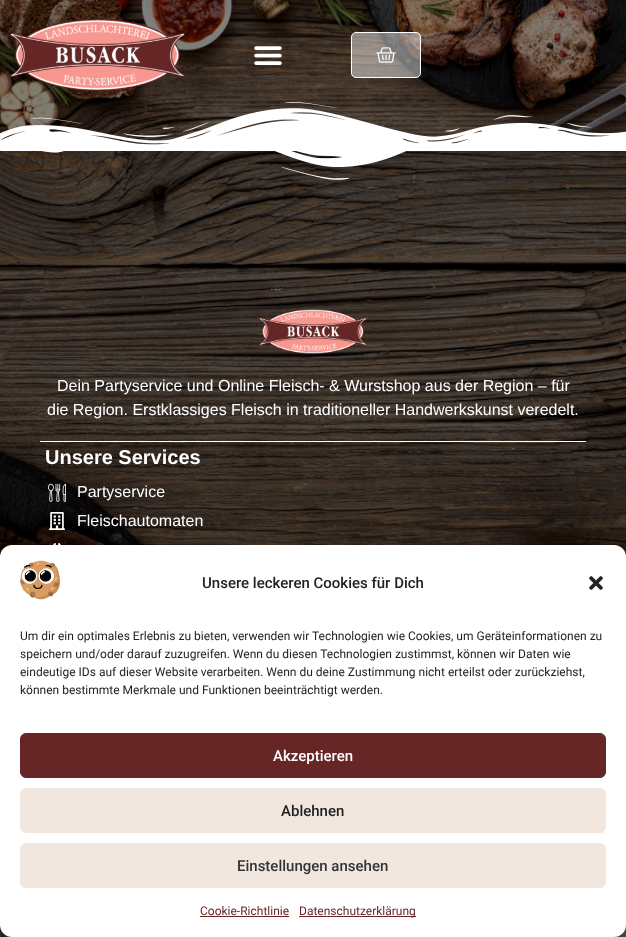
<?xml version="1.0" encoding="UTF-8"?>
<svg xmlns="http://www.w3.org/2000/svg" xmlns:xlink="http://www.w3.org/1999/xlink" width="626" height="937">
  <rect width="100%" height="100%" fill="#ffffff" />
  <image x="0" y="0" width="626" height="145" xlink:href="image1.png" />
  <rect width="626" height="145" fill="#000000" fill-opacity="0.5" />
  <image x="10" y="19" width="175" height="72" xlink:href="image2.png" />
  <rect x="246" y="36" width="45" height="42" fill="#000000" fill-opacity="0.05" />
  <image x="254" y="46" width="28" height="19" xlink:href="image3.png" />
  <rect x="351.5" y="32.5" width="69" height="45" rx="4.5" fill="#ffffff" fill-opacity="0.45" stroke="#ffffff" />
  <image x="376" y="47" width="20" height="16" xlink:href="image4.png" />
  <image x="0" y="102" width="626" height="49" xlink:href="image5.png" />
  <image x="0" y="151" width="626" height="786" xlink:href="image6.png" />
  <image x="41" y="151" width="365" height="29" xlink:href="image7.png" />
  <rect x="40" y="441" width="546" height="1" fill="#ffffff" />
  <image x="259" y="309" width="108" height="45" xlink:href="image8.png" />
  <image x="48" y="483" width="18" height="19" xlink:href="image9.png" />
  <image x="49" y="512" width="16" height="18" xlink:href="image10.png" />
  <image x="53" y="543" width="8" height="2" xlink:href="image11.png" />
  <rect y="551" width="626" height="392" rx="12" fill="#000000" fill-opacity="0.23" filter="blur(3px)" />
  <rect y="555" width="626" height="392" rx="12" fill="#000000" fill-opacity="0.19" filter="blur(10px)" />
  <rect y="545" width="626" height="392" rx="12" fill="#ffffff" />
  <image x="20" y="560" width="40" height="40" xlink:href="image12.png" />
  <image x="589" y="576" width="14" height="14" xlink:href="image13.png" />
  <rect x="20.5" y="733.5" width="585" height="44" rx="5.5" fill="#662626" stroke="#662626" />
  <rect x="20.5" y="788.5" width="585" height="44" rx="5.5" fill="#f2e7df" stroke="#f2e7df" />
  <rect x="20.5" y="843.5" width="585" height="44" rx="5.5" fill="#f2e7df" stroke="#f2e7df" />
  <rect x="200" y="916" width="89" height="1" fill="#662626" />
  <rect x="299" y="916" width="117" height="1" fill="#662626" />
  <text x="57" y="391" style="font-family: Liberation Sans; font-size: 16px; fill: #ffffff">Dein Partyservice und Online Fleisch- &amp; Wurstshop aus der Region – für</text>
  <text x="47" y="415" style="font-family: Liberation Sans; font-size: 16px; fill: #ffffff">die Region. Erstklassiges Fleisch in traditioneller Handwerkskunst veredelt.</text>
  <text x="45" y="464" style="font-family: Liberation Sans; font-size: 20px; font-weight: bold; fill: #ffffff">Unsere Services</text>
  <text x="77" y="497" style="font-family: Liberation Sans; font-size: 16px; fill: #ffffff">Partyservice</text>
  <text x="77" y="526" style="font-family: Liberation Sans; font-size: 16px; fill: #ffffff">Fleischautomaten</text>
  <text x="202" y="588" style="font-family: Roboto; font-size: 15px; font-weight: 500; fill: #222222">Unsere leckeren Cookies für Dich</text>
  <text x="20" y="640" style="font-family: Roboto; font-size: 12px; fill: #222222">Um dir ein optimales Erlebnis zu bieten, verwenden wir Technologien wie Cookies, um Geräteinformationen zu</text>
  <text x="20" y="658" style="font-family: Roboto; font-size: 12px; fill: #222222">speichern und/oder darauf zuzugreifen. Wenn du diesen Technologien zustimmst, können wir Daten wie</text>
  <text x="20" y="676" style="font-family: Roboto; font-size: 12px; fill: #222222">eindeutige IDs auf dieser Website verarbeiten. Wenn du deine Zustimmung nicht erteilst oder zurückziehst,</text>
  <text x="20" y="694" style="font-family: Roboto; font-size: 12px; fill: #222222">können bestimmte Merkmale und Funktionen beeinträchtigt werden.</text>
  <text x="273" y="761" style="font-family: Roboto; font-size: 15px; font-weight: 500; fill: #ffffff">Akzeptieren</text>
  <text x="281" y="816" style="font-family: Roboto; font-size: 15px; font-weight: 500; fill: #222222">Ablehnen</text>
  <text x="237" y="871" style="font-family: Roboto; font-size: 15px; font-weight: 500; fill: #333333">Einstellungen ansehen</text>
  <text x="200" y="915" style="font-family: Roboto; font-size: 12px; fill: #662626">Cookie-Richtlinie</text>
  <text x="299" y="915" style="font-family: Roboto; font-size: 12px; fill: #662626">Datenschutzerklärung</text>
</svg>
